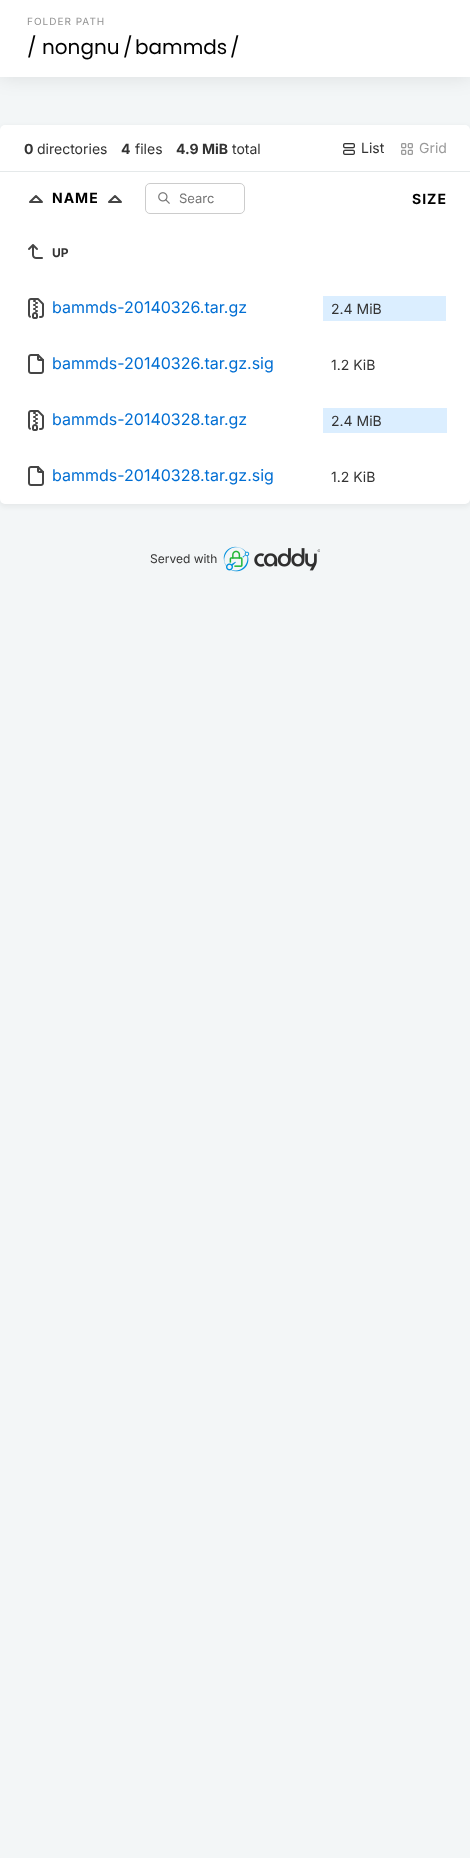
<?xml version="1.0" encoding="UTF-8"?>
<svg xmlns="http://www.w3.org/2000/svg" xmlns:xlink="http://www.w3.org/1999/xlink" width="470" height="1858">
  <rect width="100%" height="100%" fill="#f3f6f7" />
  <rect width="470" height="77" fill="#000000" fill-opacity="0.1" filter="blur(10px)" />
  <rect width="470" height="77" fill="#ffffff" />
  <rect x="-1" y="126" width="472" height="381" rx="6" fill="#000000" fill-opacity="0.05" filter="blur(2.5px)" />
  <rect y="125" width="470" height="379" rx="5" fill="#ffffff" />
  <rect y="171" width="470" height="1" fill="#e5e9ea" />
  <image x="343" y="143" width="12" height="12" xlink:href="image1.png" />
  <image x="401" y="143" width="12" height="12" xlink:href="image2.png" />
  <path d="M 42 202 l -6 -6 l -6 6 h 12" fill="none" stroke="#454545" stroke-width="2" stroke-linecap="round" stroke-linejoin="round" />
  <path d="M 121 202 l -6 -6 l -6 6 h 12" fill="none" stroke="#454545" stroke-width="2" stroke-linecap="round" stroke-linejoin="round" />
  <image x="158" y="192" width="12" height="12" xlink:href="image3.png" />
  <rect x="145.5" y="183.5" width="99" height="30" rx="4.5" fill="none" stroke="#cccccc" />
  <image x="28" y="244" width="15" height="15" xlink:href="image4.png" />
  <image x="28" y="298" width="16" height="21" xlink:href="image5.png" />
  <rect x="323" y="296" width="123" height="25" fill="#dbeeff" />
  <image x="28" y="354" width="16" height="20" xlink:href="image6.png" />
  <image x="28" y="410" width="16" height="21" xlink:href="image5.png" />
  <rect x="323" y="408" width="124" height="25" fill="#dbeeff" />
  <image x="28" y="466" width="16" height="20" xlink:href="image6.png" />
  <image x="223" y="546" width="97" height="26" xlink:href="image7.png" />
  <text x="27" y="25" style="font-family: Inter; font-size: 10px; letter-spacing: 1px; fill: #939393">FOLDER PATH</text>
  <text x="27" y="54" style="font-family: Poppins; font-size: 20px; fill: #000000">/</text>
  <text x="42" y="54" style="font-family: Poppins; font-size: 20px; fill: #000000">nongnu</text>
  <text x="123" y="54" style="font-family: Poppins; font-size: 20px; fill: #000000">/</text>
  <text x="135" y="54" style="font-family: Poppins; font-size: 20px; fill: #000000">bammds</text>
  <text x="230" y="54" style="font-family: Poppins; font-size: 20px; fill: #000000">/</text>
  <text x="24" y="154" style="font-family: Inter; font-size: 14px; font-weight: bold; fill: #333333">0</text>
  <text x="37" y="154" style="font-family: Inter; font-size: 14px; fill: #333333">directories</text>
  <text x="121" y="154" style="font-family: Inter; font-size: 14px; font-weight: bold; fill: #333333">4</text>
  <text x="135" y="154" style="font-family: Inter; font-size: 14px; fill: #333333">files</text>
  <text x="176" y="154" style="font-family: Inter; font-size: 14px; font-weight: bold; fill: #333333">4.9 MiB</text>
  <text x="232" y="154" style="font-family: Inter; font-size: 14px; fill: #333333">total</text>
  <text x="361" y="153" style="font-family: Inter; font-size: 14px; fill: #333333">List</text>
  <text x="419" y="153" style="font-family: Inter; font-size: 14px; fill: #9a9a9a">Grid</text>
  <text x="52" y="203" style="font-family: Inter; font-size: 14px; font-weight: bold; letter-spacing: 1px; fill: #000000">NAME</text>
  <text x="179" y="203" style="font-family: Inter; font-size: 13px; fill: #757575">Searc</text>
  <text x="412" y="204" style="font-family: Inter; font-size: 14px; font-weight: bold; letter-spacing: 1px; fill: #000000">SIZE</text>
  <text x="52" y="257" style="font-family: Inter; font-size: 12px; font-weight: bold; fill: #333333">UP</text>
  <text x="52" y="313" style="font-family: Inter; font-size: 16px; fill: #006ed3">bammds-20140326.tar.gz</text>
  <text x="331" y="314" style="font-family: Inter; font-size: 14px; fill: #333333">2.4 MiB</text>
  <text x="52" y="369" style="font-family: Inter; font-size: 16px; fill: #006ed3">bammds-20140326.tar.gz.sig</text>
  <text x="331" y="370" style="font-family: Inter; font-size: 14px; fill: #333333">1.2 KiB</text>
  <text x="52" y="425" style="font-family: Inter; font-size: 16px; fill: #006ed3">bammds-20140328.tar.gz</text>
  <text x="331" y="426" style="font-family: Inter; font-size: 14px; fill: #333333">2.4 MiB</text>
  <text x="52" y="481" style="font-family: Inter; font-size: 16px; fill: #006ed3">bammds-20140328.tar.gz.sig</text>
  <text x="331" y="482" style="font-family: Inter; font-size: 14px; fill: #333333">1.2 KiB</text>
  <text x="150" y="563" style="font-family: Inter; font-size: 12px; fill: #333333">Served with</text>
</svg>
